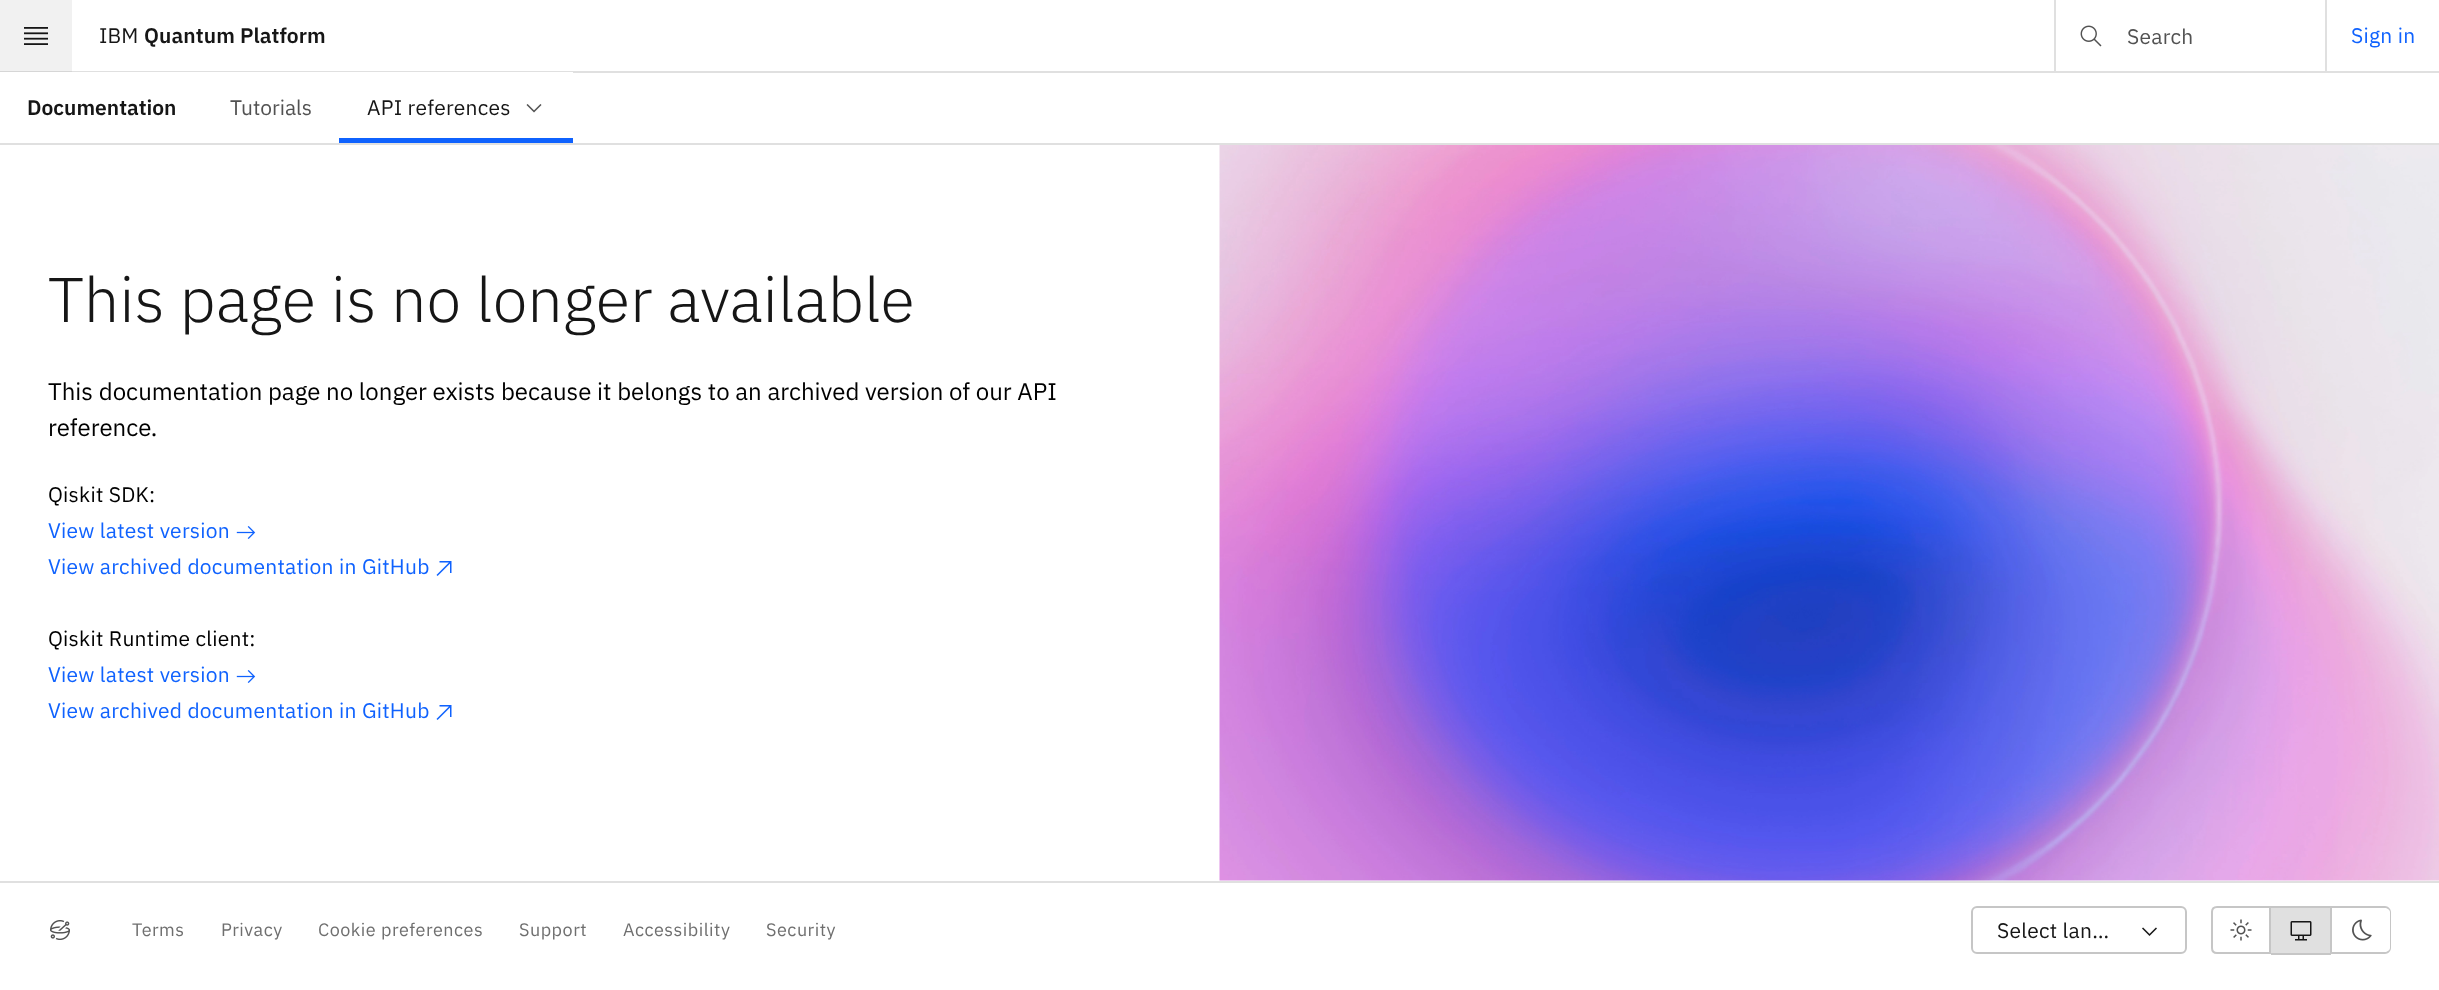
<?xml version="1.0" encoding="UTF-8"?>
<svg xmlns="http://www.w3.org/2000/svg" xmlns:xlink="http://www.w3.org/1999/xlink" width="2439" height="990">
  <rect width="100%" height="100%" fill="#ffffff" />
  <rect width="72" height="71" fill="#f1f1f1" />
  <rect x="72" y="71" width="2367" height="2" fill="#e0e0e0" />
  <rect y="71" width="72" height="1" fill="#d6d6d6" />
  <image x="24" y="27" width="24" height="18" xlink:href="image1.png" />
  <rect x="2325" width="2" height="71" fill="#e0e0e0" />
  <rect x="2054" width="2" height="71" fill="#e0e0e0" />
  <image x="2080" y="25" width="22" height="22" xlink:href="image2.png" />
  <rect y="143" width="2439" height="2" fill="#e0e0e0" />
  <rect x="72" y="72" width="501" height="1" fill="#ffffff" />
  <image x="526" y="104" width="16" height="9" xlink:href="image3.png" />
  <rect x="339" y="138" width="234" height="5" fill="#0f62fe" />
  <image x="236" y="526" width="20" height="13" xlink:href="image4.png" />
  <image x="436" y="561" width="16" height="15" xlink:href="image5.png" />
  <image x="236" y="670" width="20" height="13" xlink:href="image4.png" />
  <image x="436" y="705" width="16" height="15" xlink:href="image5.png" />
  <image x="1219" y="145" width="1220" height="736" xlink:href="image6.png" />
  <rect y="881" width="2439" height="2" fill="#e0e0e0" />
  <image x="50" y="920" width="20" height="20" xlink:href="image7.png" />
  <rect x="1972" y="907" width="214" height="46" rx="5" fill="none" stroke="#c6c6c6" stroke-width="2" />
  <image x="2142" y="927" width="15" height="9" xlink:href="image8.png" />
  <path d="M 2217 907 h 53 v 46 h -53 c -3 0 -5 -2 -5 -5 v -36 c 0 -3 2 -5 5 -5 z" fill="none" stroke="#c6c6c6" stroke-width="2" />
  <image x="2230" y="919" width="22" height="22" xlink:href="image9.png" />
  <rect x="2271" y="908" width="59" height="45" fill="#e0e0e0" />
  <rect x="2271" y="906" width="60" height="2" fill="#c6c6c6" />
  <rect x="2330" y="906" width="2" height="48" fill="#c6c6c6" />
  <rect x="2271" y="953" width="60" height="2" fill="#c6c6c6" />
  <image x="2290" y="921" width="22" height="20" xlink:href="image10.png" />
  <path d="M 2331 906 h 54 c 3 0 6 3 6 6 v 36 c 0 3 -3 6 -6 6 h -54 z m 0 2 h 54 c 2 0 5 2 5 4 v 36 c 0 2 -3 4 -5 4 h -54 z" fill="#c6c6c6" fill-rule="evenodd" />
  <image x="2352" y="919" width="20" height="22" xlink:href="image11.png" />
  <text x="99" y="43" style="font-family: IBM Plex Sans; font-size: 21px; letter-spacing: 0.1px; fill: #161616">IBM</text>
  <text x="144" y="43" style="font-family: IBM Plex Sans; font-size: 21px; font-weight: 600; letter-spacing: 0.1px; fill: #161616">Quantum Platform</text>
  <text x="2127" y="44" style="font-family: IBM Plex Sans; font-size: 21px; letter-spacing: 0.25px; fill: #525252">Search</text>
  <text x="2351" y="43" style="font-family: IBM Plex Sans; font-size: 21px; letter-spacing: 0.25px; fill: #0f62fe">Sign in</text>
  <text x="27" y="115" style="font-family: IBM Plex Sans; font-size: 21px; font-weight: 600; fill: #161616">Documentation</text>
  <text x="230" y="115" style="font-family: IBM Plex Sans; font-size: 21px; fill: #525252">Tutorials</text>
  <text x="367" y="115" style="font-family: IBM Plex Sans; font-size: 21px; letter-spacing: 0.25px; fill: #161616">API references</text>
  <text x="48" y="322" style="font-family: IBM Plex Sans; font-size: 63px; font-weight: 300; fill: #161616">This page is no longer available</text>
  <text x="48" y="400" style="font-family: IBM Plex Sans; font-size: 24px; fill: #000000">This documentation page no longer exists because it belongs to an archived version of our API</text>
  <text x="48" y="436" style="font-family: IBM Plex Sans; font-size: 24px; fill: #000000">reference.</text>
  <text x="48" y="502" style="font-family: IBM Plex Sans; font-size: 21px; letter-spacing: 0.25px; fill: #000000">Qiskit SDK:</text>
  <text x="48" y="538" style="font-family: IBM Plex Sans; font-size: 21px; letter-spacing: 0.25px; fill: #0f62fe">View latest version</text>
  <text x="48" y="574" style="font-family: IBM Plex Sans; font-size: 21px; letter-spacing: 0.25px; fill: #0f62fe">View archived documentation in GitHub</text>
  <text x="48" y="646" style="font-family: IBM Plex Sans; font-size: 21px; letter-spacing: 0.25px; fill: #000000">Qiskit Runtime client:</text>
  <text x="48" y="682" style="font-family: IBM Plex Sans; font-size: 21px; letter-spacing: 0.25px; fill: #0f62fe">View latest version</text>
  <text x="48" y="718" style="font-family: IBM Plex Sans; font-size: 21px; letter-spacing: 0.25px; fill: #0f62fe">View archived documentation in GitHub</text>
  <text x="132" y="936" style="font-family: IBM Plex Sans; font-size: 18px; letter-spacing: 0.5px; fill: #6f6f6f">Terms</text>
  <text x="221" y="936" style="font-family: IBM Plex Sans; font-size: 18px; letter-spacing: 0.5px; fill: #6f6f6f">Privacy</text>
  <text x="318" y="936" style="font-family: IBM Plex Sans; font-size: 18px; letter-spacing: 0.5px; fill: #6f6f6f">Cookie preferences</text>
  <text x="519" y="936" style="font-family: IBM Plex Sans; font-size: 18px; letter-spacing: 0.5px; fill: #6f6f6f">Support</text>
  <text x="623" y="936" style="font-family: IBM Plex Sans; font-size: 18px; letter-spacing: 0.5px; fill: #6f6f6f">Accessibility</text>
  <text x="766" y="936" style="font-family: IBM Plex Sans; font-size: 18px; letter-spacing: 0.5px; fill: #6f6f6f">Security</text>
  <text x="1997" y="938" style="font-family: IBM Plex Sans; font-size: 21px; letter-spacing: 0.25px; fill: #161616">Select lan…</text>
</svg>
